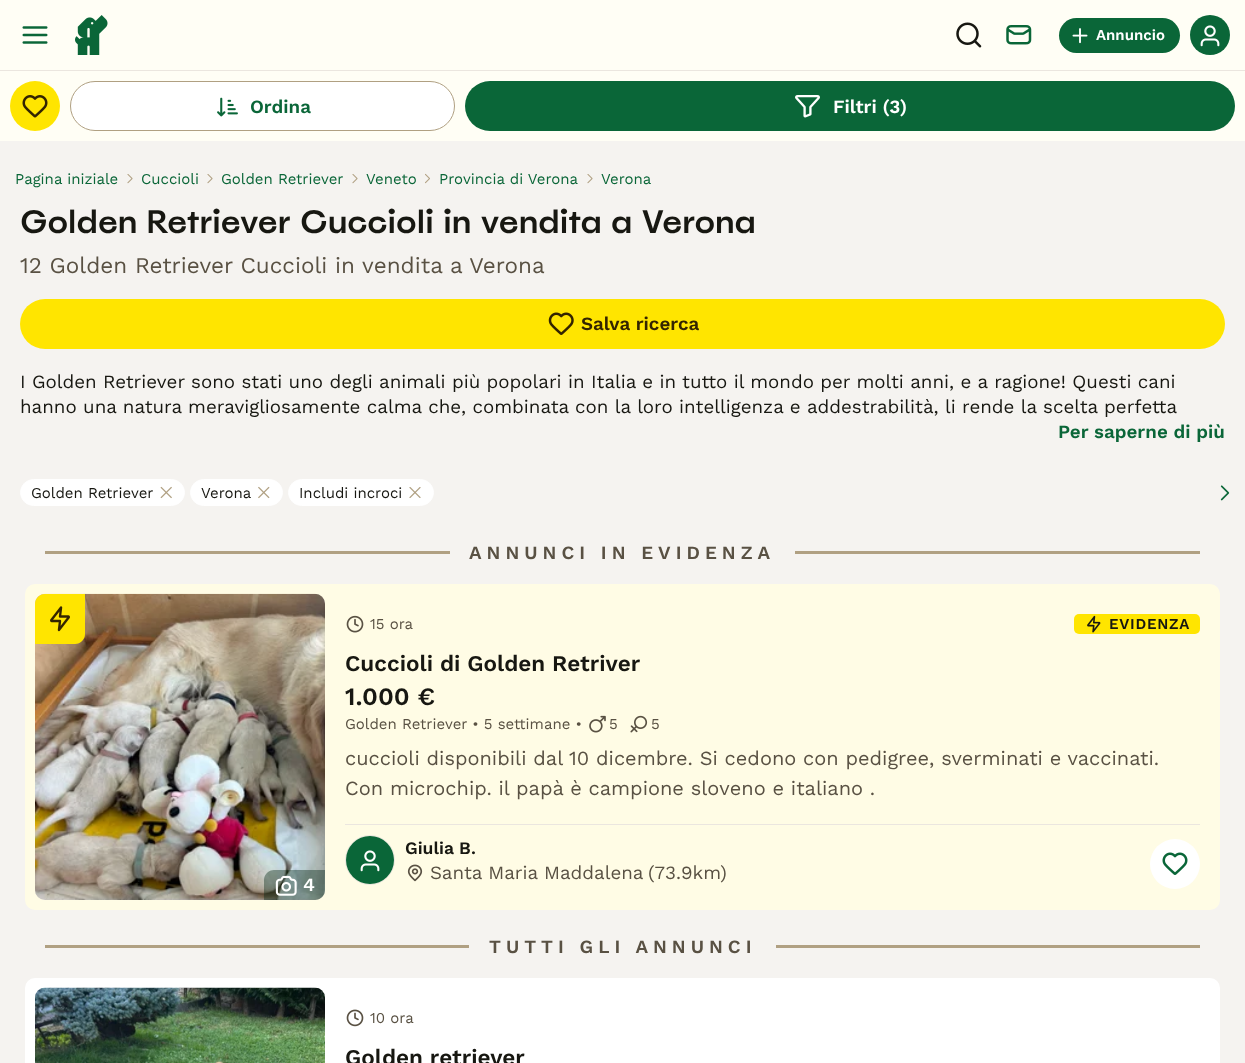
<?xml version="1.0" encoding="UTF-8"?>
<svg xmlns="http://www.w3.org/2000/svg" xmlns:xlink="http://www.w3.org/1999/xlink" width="1245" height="1063">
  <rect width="100%" height="100%" fill="#f5f3f0" />
  <rect width="1245" height="141" fill="#fffef5" />
  <rect y="70" width="1245" height="1" fill="#ebe6df" />
  <image x="22" y="26" width="26" height="18" xlink:href="image1.png" />
  <image x="75" y="15" width="33" height="40" xlink:href="image2.png" />
  <image x="956" y="22" width="26" height="26" xlink:href="image3.png" />
  <image x="1006" y="25" width="26" height="20" xlink:href="image4.png" />
  <rect x="1059" y="18" width="121" height="35" rx="17.5" fill="#0a6638" />
  <image x="1072" y="28" width="16" height="16" xlink:href="image5.png" />
  <circle cx="1210" cy="35" r="20" fill="#0a6638" />
  <image x="1200" y="25" width="20" height="22" xlink:href="image6.png" />
  <circle cx="35" cy="106" r="25" fill="#ffe500" />
  <image x="22" y="95" width="26" height="23" xlink:href="image7.png" />
  <rect x="70.5" y="81.5" width="384" height="49" rx="24.5" fill="#ffffff" stroke="#b0a082" />
  <image x="217" y="97" width="21" height="20" xlink:href="image8.png" />
  <rect x="465" y="81" width="770" height="50" rx="25" fill="#0a6638" />
  <image x="795" y="95" width="25" height="23" xlink:href="image9.png" />
  <image x="127" y="174" width="6" height="10" xlink:href="image10.png" />
  <image x="207" y="174" width="6" height="10" xlink:href="image10.png" />
  <image x="352" y="174" width="6" height="10" xlink:href="image10.png" />
  <image x="425" y="173" width="5" height="11" xlink:href="image11.png" />
  <image x="587" y="174" width="6" height="10" xlink:href="image10.png" />
  <rect x="20" y="299" width="1205" height="50" rx="25" fill="#ffe500" />
  <image x="548" y="312" width="26" height="23" xlink:href="image12.png" />
  <rect x="20.5" y="479.5" width="164" height="26" rx="13" fill="#ffffff" stroke="#ffffff" />
  <image x="160" y="486" width="12" height="13" xlink:href="image13.png" />
  <rect x="190.5" y="479.5" width="92" height="26" rx="13" fill="#ffffff" stroke="#ffffff" />
  <image x="258" y="486" width="12" height="13" xlink:href="image14.png" />
  <rect x="288.5" y="479.5" width="145" height="26" rx="13" fill="#ffffff" stroke="#ffffff" />
  <image x="409" y="487" width="12" height="11" xlink:href="image15.png" />
  <image x="1220" y="485" width="10" height="16" xlink:href="image16.png" />
  <rect x="45" y="551" width="1155" height="3" fill="#b0a082" />
  <rect x="450" y="551" width="345" height="3" fill="#f5f3f0" />
  <rect x="25" y="584" width="1195" height="326" rx="10" fill="#fffce5" />
  <image x="346" y="615" width="18" height="18" xlink:href="image17.png" />
  <rect x="1074" y="614" width="126" height="20" rx="5" fill="#ffe500" />
  <image x="1087" y="615" width="14" height="18" xlink:href="image18.png" />
  <image x="589" y="715" width="17" height="18" xlink:href="image19.png" />
  <image x="630" y="715" width="18" height="18" xlink:href="image20.png" />
  <rect x="345" y="824" width="855" height="1" fill="#ebe6df" />
  <circle cx="370" cy="860" r="24.5" fill="none" stroke="#ebe6df" />
  <circle cx="370" cy="860" r="24" fill="#0a6638" />
  <image x="360" y="850" width="20" height="22" xlink:href="image6.png" />
  <image x="407" y="864" width="16" height="18" xlink:href="image21.png" />
  <circle cx="1175" cy="864" r="25" fill="#ffffff" />
  <image x="1162" y="852" width="26" height="23" xlink:href="image22.png" />
  <rect x="35" y="594" width="290" height="306" rx="10" fill="#ebe6df" />
  <image x="35" y="593" width="290" height="307" xlink:href="image23.png" />
  <path d="M 45 594 h 40 v 40 c 0 5.5 -4.5 10 -10 10 h -40 v -40 c 0 -5.5 4.5 -10 10 -10 z" fill="#ffe500" />
  <image x="50" y="606" width="20" height="26" xlink:href="image24.png" />
  <path d="M 274 870 h 51 v 20 c 0 5.5 -4.5 10 -10 10 h -51 v -20 c 0 -5.5 4.5 -10 10 -10 z" fill="#042615" fill-opacity="0.4" />
  <image x="275" y="875" width="22" height="21" xlink:href="image25.png" />
  <rect x="45" y="945" width="1155" height="3" fill="#b0a082" />
  <rect x="469" y="945" width="307" height="3" fill="#f5f3f0" />
  <rect x="25" y="978" width="1195" height="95" rx="10" fill="#ffffff" />
  <image x="35" y="987" width="290" height="76" xlink:href="image26.png" />
  <image x="346" y="1009" width="18" height="18" xlink:href="image27.png" />
  <text x="1096" y="40" style="font-family: Work Sans; font-size: 15px; font-weight: 600; fill: #ffffff">Annuncio</text>
  <text x="250" y="113" style="font-family: Work Sans; font-size: 18.75px; font-weight: 600; fill: #0a6638">Ordina</text>
  <text x="833" y="113" style="font-family: Work Sans; font-size: 18.75px; font-weight: 600; fill: #ffffff">Filtri (3)</text>
  <text x="15" y="184" style="font-family: Work Sans; font-size: 15px; fill: #0a6638">Pagina iniziale</text>
  <text x="141" y="184" style="font-family: Work Sans; font-size: 15px; fill: #0a6638">Cuccioli</text>
  <text x="221" y="184" style="font-family: Work Sans; font-size: 15px; fill: #0a6638">Golden Retriever</text>
  <text x="366" y="184" style="font-family: Work Sans; font-size: 15px; fill: #0a6638">Veneto</text>
  <text x="439" y="184" style="font-family: Work Sans; font-size: 15px; fill: #0a6638">Provincia di Verona</text>
  <text x="601" y="184" style="font-family: Work Sans; font-size: 15px; fill: #0a6638">Verona</text>
  <text x="20" y="233" style="font-family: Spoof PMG; font-size: 32.5px; font-weight: 500; fill: #171711">Golden Retriever Cuccioli in vendita a Verona</text>
  <text x="20" y="273" style="font-family: Work Sans; font-size: 22.5px; fill: #595143">12 Golden Retriever Cuccioli in vendita a Verona</text>
  <text x="581" y="330" style="font-family: Work Sans; font-size: 18.75px; font-weight: 600; fill: #332400">Salva ricerca</text>
  <text x="20" y="388" style="font-family: Work Sans; font-size: 18.75px; fill: #171711">I Golden Retriever sono stati uno degli animali più popolari in Italia e in tutto il mondo per molti anni, e a ragione! Questi cani</text>
  <text x="20" y="413" style="font-family: Work Sans; font-size: 18.75px; fill: #171711">hanno una natura meravigliosamente calma che, combinata con la loro intelligenza e addestrabilità, li rende la scelta perfetta</text>
  <text x="1058" y="438" style="font-family: Work Sans; font-size: 18.75px; font-weight: 600; fill: #0a6638">Per saperne di più</text>
  <text x="31" y="498" style="font-family: Work Sans; font-size: 15px; fill: #171711">Golden Retriever</text>
  <text x="201" y="498" style="font-family: Work Sans; font-size: 15px; fill: #171711">Verona</text>
  <text x="299" y="498" style="font-family: Work Sans; font-size: 15px; fill: #171711">Includi incroci</text>
  <text x="469" y="559" style="font-family: Work Sans; font-size: 18.75px; font-weight: 600; letter-spacing: 5px; fill: #595143">ANNUNCI IN EVIDENZA</text>
  <text x="370" y="629" style="font-family: Work Sans; font-size: 15px; fill: #595143">15 ora</text>
  <text x="1109" y="629" style="font-family: Work Sans; font-size: 15px; font-weight: 600; letter-spacing: 0.75px; fill: #171711">EVIDENZA</text>
  <text x="345" y="671" style="font-family: Work Sans; font-size: 22.5px; font-weight: 600; fill: #171711">Cuccioli di Golden Retriver</text>
  <text x="345" y="705" style="font-family: Work Sans; font-size: 25px; font-weight: 600; fill: #171711">1.000 €</text>
  <text x="345" y="729" style="font-family: Work Sans; font-size: 15px; fill: #595143">Golden Retriever • 5 settimane •</text>
  <text x="609" y="729" style="font-family: Work Sans; font-size: 15px; fill: #595143">5</text>
  <text x="651" y="729" style="font-family: Work Sans; font-size: 15px; fill: #595143">5</text>
  <text x="345" y="765" style="font-family: Work Sans; font-size: 20px; fill: #595143">cuccioli disponibili dal 10 dicembre. Si cedono con pedigree, sverminati e vaccinati.</text>
  <text x="345" y="795" style="font-family: Work Sans; font-size: 20px; fill: #595143">Con microchip. il papà è campione sloveno e italiano .</text>
  <text x="405" y="854" style="font-family: Work Sans; font-size: 17.5px; font-weight: 600; fill: #171711">Giulia B.</text>
  <text x="430" y="879" style="font-family: Work Sans; font-size: 18.75px; fill: #595143">Santa Maria Maddalena</text>
  <text x="648" y="879" style="font-family: Work Sans; font-size: 18.75px; fill: #595143">(73.9km)</text>
  <text x="303" y="891" style="font-family: Work Sans; font-size: 18.75px; font-weight: 600; fill: #ffffff">4</text>
  <text x="489" y="953" style="font-family: Work Sans; font-size: 18.75px; font-weight: 600; letter-spacing: 5px; fill: #595143">TUTTI GLI ANNUNCI</text>
  <text x="370" y="1023" style="font-family: Work Sans; font-size: 15px; fill: #595143">10 ora</text>
  <text x="345" y="1065" style="font-family: Work Sans; font-size: 22.5px; font-weight: 600; fill: #171711">Golden retriever</text>
</svg>
